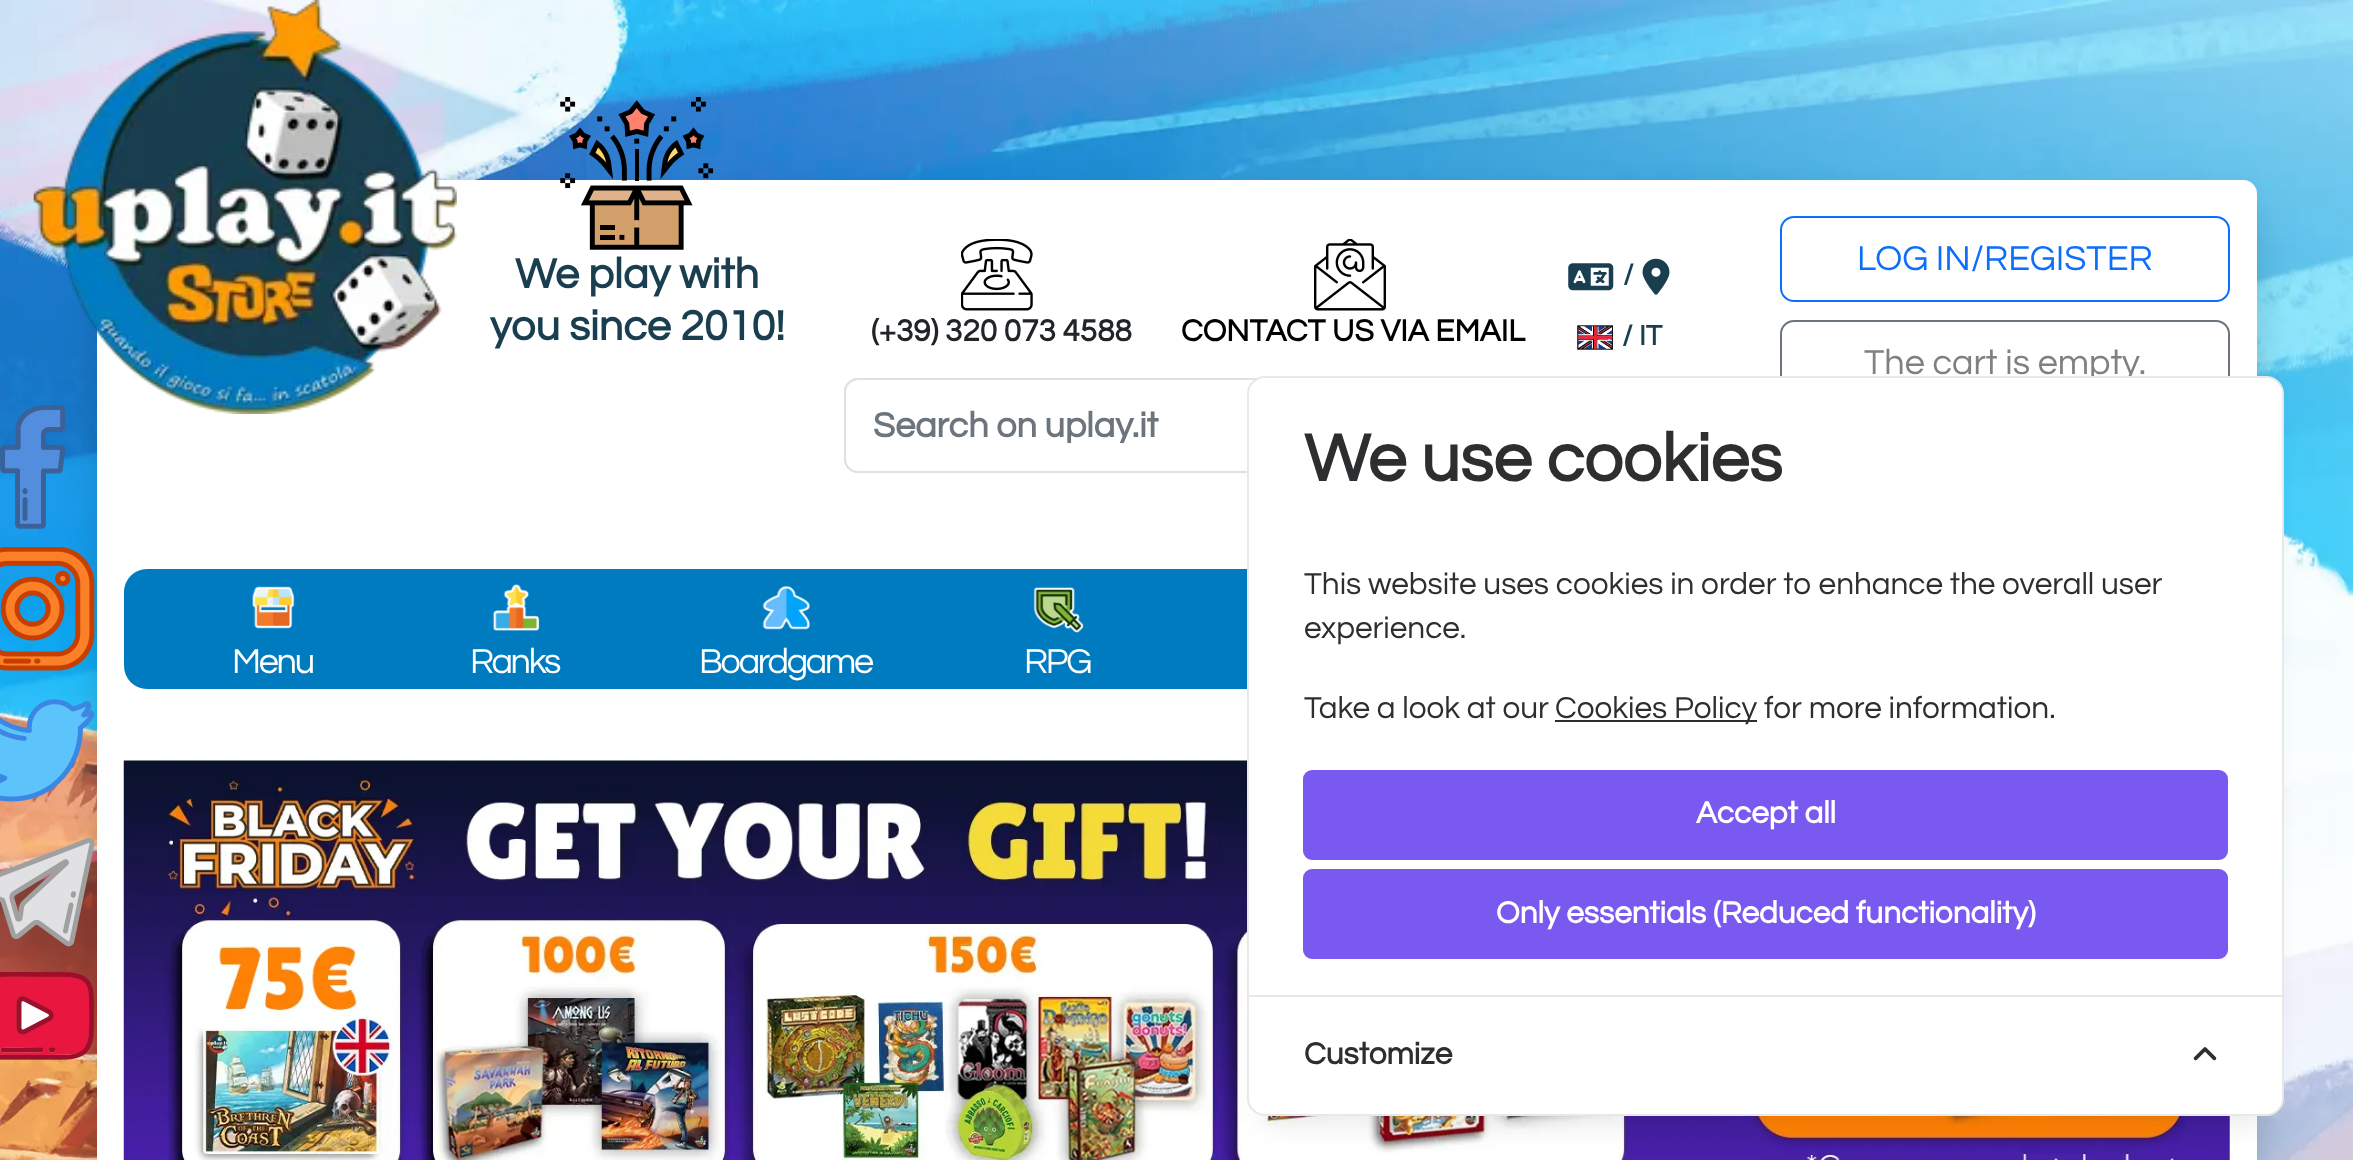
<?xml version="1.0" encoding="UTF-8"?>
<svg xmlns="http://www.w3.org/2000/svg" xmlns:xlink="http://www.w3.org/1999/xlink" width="2353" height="1160">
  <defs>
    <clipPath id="clip1"><rect x="873" y="407" width="788" height="36" /></clipPath>
  </defs>
  <rect width="100%" height="100%" fill="#ffffff" />
  <image x="0" y="0" width="2353" height="1160" xlink:href="image1.png" />
  <rect x="97" y="198" width="2160" height="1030" rx="14" fill="#000000" fill-opacity="0.15" filter="blur(18px)" />
  <rect x="97" y="180" width="2160" height="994" rx="14" fill="#ffffff" />
  <image x="0" y="405" width="66" height="124" xlink:href="image9.png" />
  <image x="33" y="0" width="424" height="414" xlink:href="image2.png" />
  <image x="560" y="97" width="153" height="153" xlink:href="image3.png" />
  <image x="961" y="239" width="72" height="72" xlink:href="image4.png" />
  <image x="1314" y="239" width="72" height="72" xlink:href="image5.png" />
  <image x="1568" y="263" width="46" height="28" xlink:href="image6.png" />
  <image x="1642" y="258" width="28" height="37" xlink:href="image7.png" />
  <image x="1577" y="325" width="36" height="25" xlink:href="image8.png" />
  <rect x="845" y="379" width="844" height="93" rx="13" fill="none" stroke="#dee2e6" stroke-width="2" />
  <rect x="845" y="379" width="844" height="93" rx="13" fill="none" stroke="#dee2e6" stroke-width="2" />
  <rect x="1781" y="217" width="448" height="84" rx="13" fill="none" stroke="#0d6efd" stroke-width="2" />
  <rect x="1781" y="321" width="448" height="83" rx="13" fill="none" stroke="#6c757d" stroke-width="2" />
  <image x="0" y="547" width="95" height="124" xlink:href="image10.png" />
  <image x="0" y="699" width="95" height="103" xlink:href="image11.png" />
  <image x="0" y="838" width="95" height="109" xlink:href="image12.png" />
  <image x="0" y="972" width="94" height="88" xlink:href="image13.png" />
  <rect x="124" y="569" width="2106" height="120" rx="23" fill="#007bc0" />
  <image x="252" y="586" width="43" height="43" xlink:href="image14.png" />
  <image x="492" y="584" width="48" height="47" xlink:href="image15.png" />
  <image x="762" y="585" width="48" height="45" xlink:href="image16.png" />
  <image x="1033" y="587" width="51" height="46" xlink:href="image17.png" />
  <image x="123" y="760" width="2107" height="400" xlink:href="image18.png" />
  <rect x="1265" y="421" width="1001" height="704" fill="#000000" fill-opacity="0.08" filter="blur(13.5px)" />
  <text x="515" y="288" style="font-family: Questrial; font-size: 43.25px; font-weight: bold; fill: #193e4f">We play with</text>
  <text x="490" y="340" style="font-family: Questrial; font-size: 43.25px; font-weight: bold; fill: #193e4f">you since 2010!</text>
  <text x="871" y="341" style="font-family: Questrial; font-size: 31.5px; font-weight: bold; fill: #212529">(+39) 320 073 4588</text>
  <text x="1181" y="341" style="font-family: Questrial; font-size: 31.5px; font-weight: bold; fill: #000000">CONTACT US VIA EMAIL</text>
  <text x="1623" y="284" style="font-family: Questrial; font-size: 29px; font-weight: bold; fill: #193e4f">/</text>
  <text x="1622" y="345" style="font-family: Questrial; font-size: 29px; font-weight: bold; fill: #193e4f">/ IT</text>
  <g clip-path="url(#clip1)">
    <text x="873" y="437" style="font-family: Questrial; font-size: 36px; font-weight: bold; fill: #6c757d">Search on uplay.it</text>
  </g>
  <text x="1857" y="270" style="font-family: Questrial; font-size: 36px; fill: #0d6efd">LOG IN/REGISTER</text>
  <text x="1864" y="374" style="font-family: Questrial; font-size: 36px; fill: #808080">The cart is empty.</text>
  <text x="232" y="673" style="font-family: Questrial; font-size: 36px; letter-spacing: -2.25px; fill: #ffffff">Menu</text>
  <text x="470" y="673" style="font-family: Questrial; font-size: 36px; letter-spacing: -2.25px; fill: #ffffff">Ranks</text>
  <text x="699" y="673" style="font-family: Questrial; font-size: 36px; letter-spacing: -2.25px; fill: #ffffff">Boardgame</text>
  <text x="1024" y="673" style="font-family: Questrial; font-size: 36px; letter-spacing: -2.25px; fill: #ffffff">RPG</text>
  <rect x="1248" y="377" width="1035" height="738" rx="17" fill="#ffffff" stroke="#e7e8e9" stroke-width="2" />
  <text x="1304" y="481" style="font-family: Questrial; font-size: 69px; font-weight: bold; fill: #2c2e30">We use cookies</text>
  <text x="1304" y="594" style="font-family: Questrial; font-size: 31.5px; fill: #2c2e30">This website uses cookies in order to enhance the overall user</text>
  <text x="1304" y="638" style="font-family: Questrial; font-size: 31.5px; fill: #2c2e30">experience.</text>
  <text x="1304" y="718" style="font-family: Questrial; font-size: 31.5px; fill: #2c2e30">Take a look at our</text>
  <rect x="1555" y="720" width="202" height="2" fill="#2c2e30" />
  <text x="1555" y="718" style="font-family: Questrial; font-size: 31.5px; fill: #2c2e30">Cookies Policy for more information.</text>
  <rect x="1304" y="771" width="923" height="88" rx="8" fill="#7959ef" stroke="#7959ef" stroke-width="2" />
  <text x="1696" y="823" style="font-family: Questrial; font-size: 31.5px; font-weight: bold; fill: #ffffff">Accept all</text>
  <rect x="1304" y="870" width="923" height="88" rx="8" fill="#7959ef" stroke="#7959ef" stroke-width="2" />
  <text x="1496" y="923" style="font-family: Questrial; font-size: 31.5px; font-weight: bold; fill: #ffffff">Only essentials (Reduced functionality)</text>
  <rect x="1249" y="995" width="1033" height="2" fill="#e7e8e9" />
  <text x="1304" y="1064" style="font-family: Questrial; font-size: 31.5px; font-weight: bold; fill: #2c2e30">Customize</text>
  <image x="2193" y="1047" width="24" height="14" xlink:href="image19.png" />
</svg>
